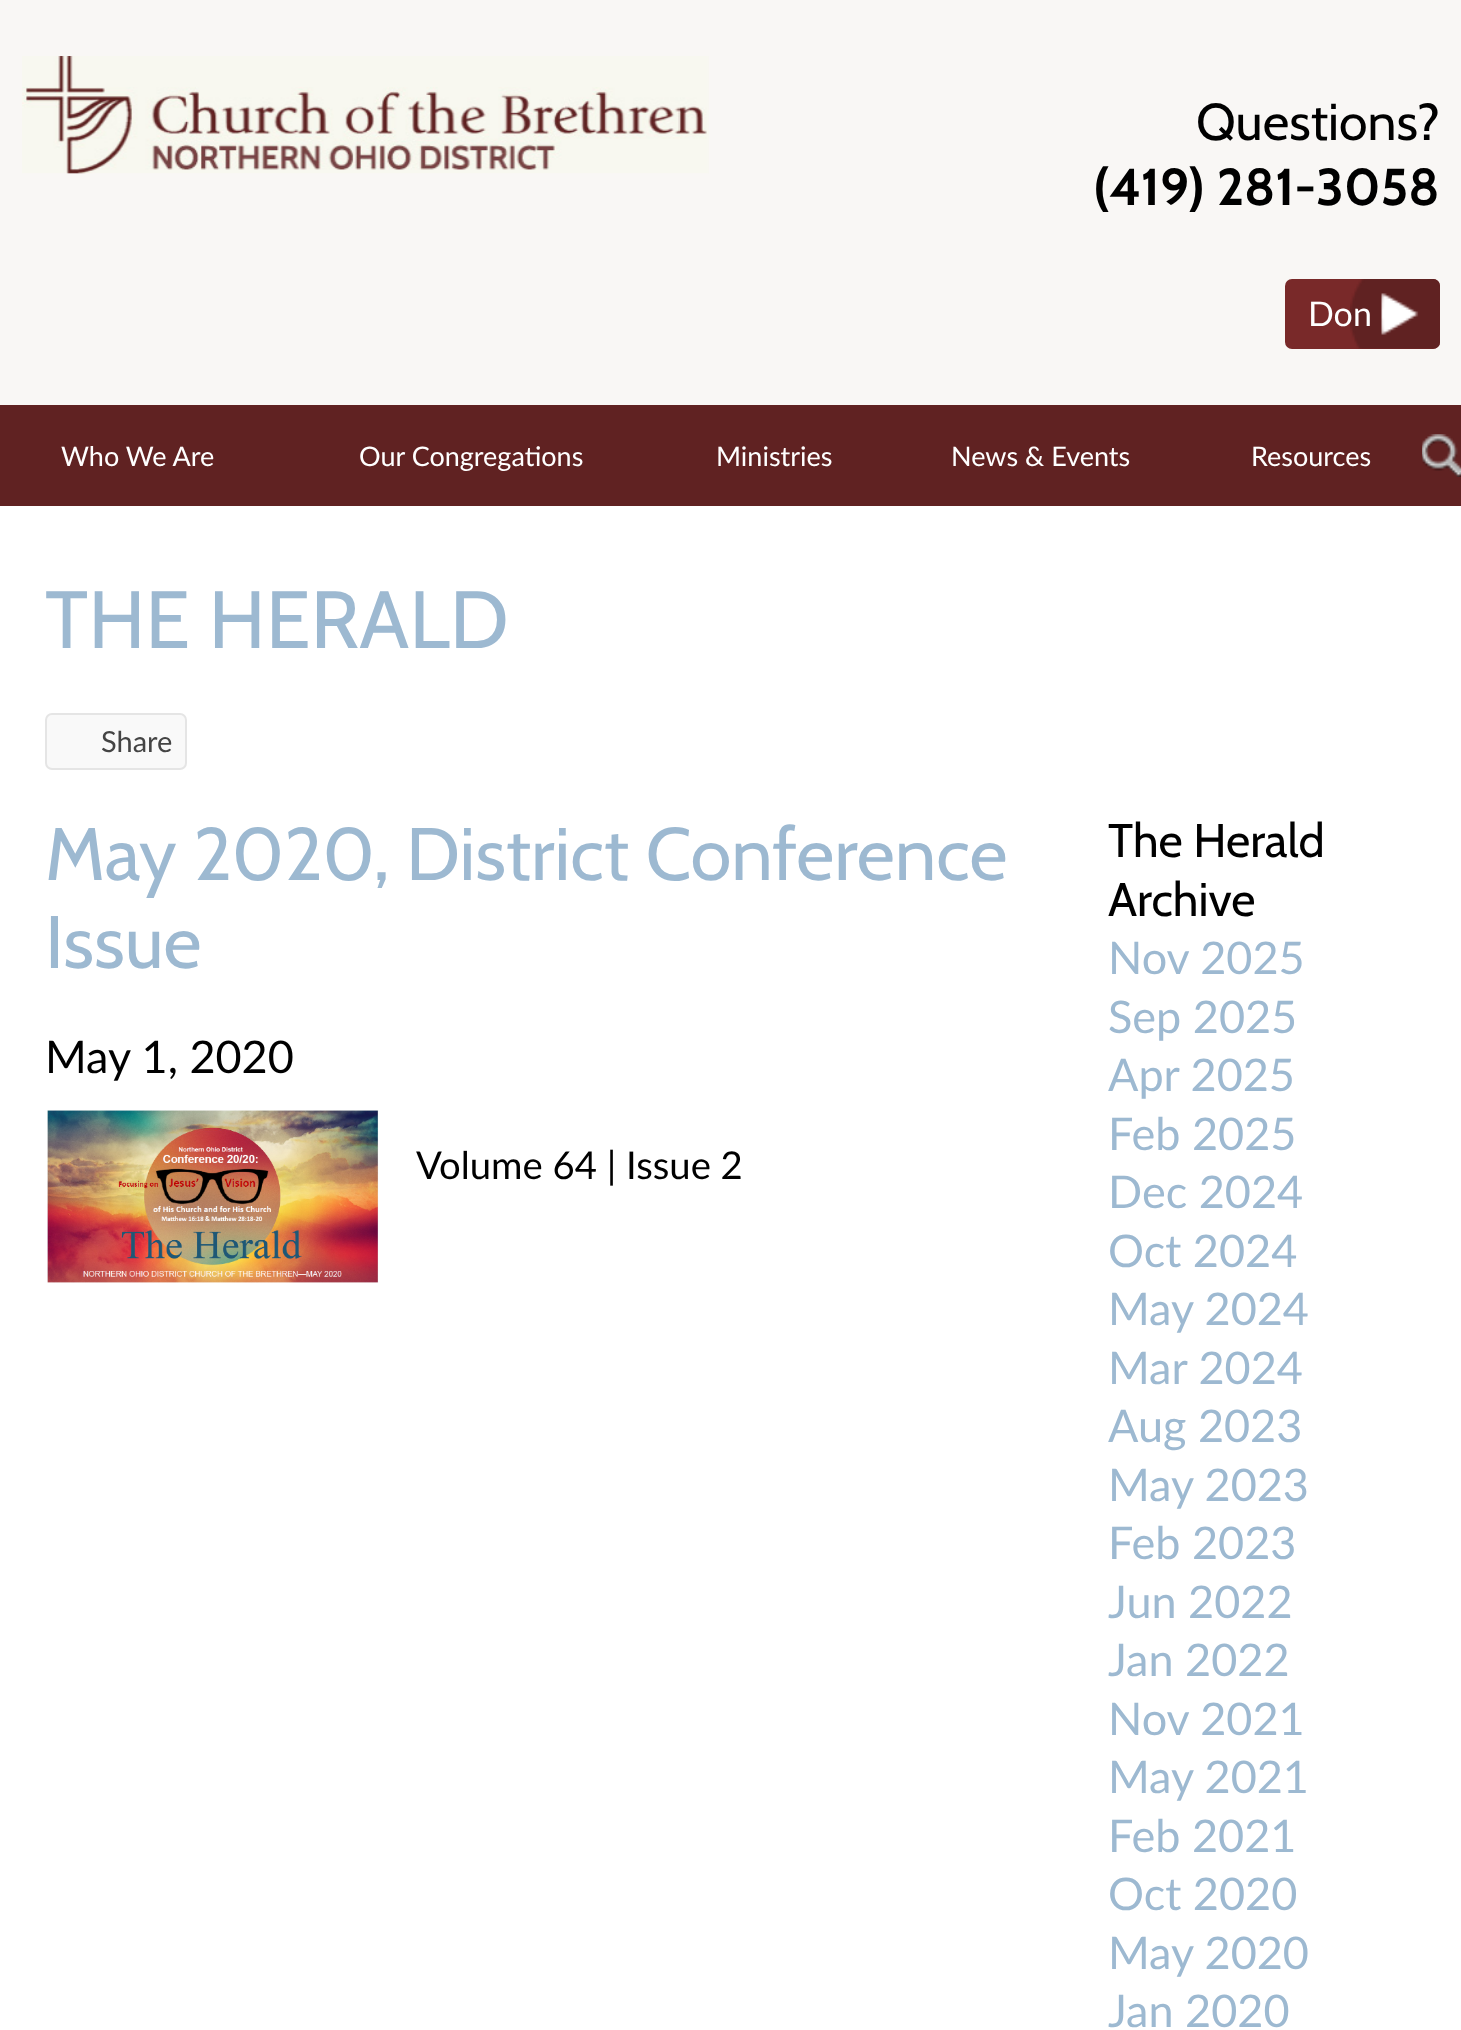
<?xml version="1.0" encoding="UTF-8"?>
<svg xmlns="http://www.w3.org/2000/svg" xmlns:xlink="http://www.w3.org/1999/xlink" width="1461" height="2030">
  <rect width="100%" height="100%" fill="#ffffff" />
  <rect width="1461" height="405" fill="#f9f7f5" />
  <image x="22" y="56" width="687" height="118" xlink:href="image1.png" />
  <rect x="1285" y="279" width="155" height="70" rx="7" fill="#792929" />
  <image x="1350" y="279" width="90" height="70" xlink:href="image2.png" />
  <rect y="405" width="1461" height="101" fill="#602222" />
  <image x="1422" y="434" width="39" height="43" xlink:href="image3.png" />
  <rect x="46" y="714" width="140" height="55" rx="6" fill="#f9f9f9" stroke="#e5e5e5" stroke-width="2" />
  <image x="47" y="1110" width="332" height="173" xlink:href="image4.png" />
  <text x="1196" y="140" style="font-family: Cabin; font-size: 51.75px; fill: #000000">Questions?</text>
  <text x="1093" y="205" style="font-family: Cabin; font-size: 51.75px; font-weight: bold; fill: #000000">(419) 281-3058</text>
  <text x="1308" y="326" style="font-family: Lato; font-size: 34px; fill: #ffffff">Don</text>
  <text x="61" y="466" style="font-family: Lato; font-size: 27px; fill: #ffffff">Who We Are</text>
  <text x="359" y="466" style="font-family: Lato; font-size: 27px; fill: #ffffff">Our Congregations</text>
  <text x="716" y="466" style="font-family: Lato; font-size: 27px; fill: #ffffff">Ministries</text>
  <text x="951" y="466" style="font-family: Lato; font-size: 27px; fill: #ffffff">News &amp; Events</text>
  <text x="1251" y="466" style="font-family: Lato; font-size: 27px; fill: #ffffff">Resources</text>
  <text x="45" y="648" style="font-family: Cabin; font-size: 81px; fill: #9db9d1">THE HERALD</text>
  <text x="101" y="752" style="font-family: Lato; font-size: 29px; fill: #444444">Share</text>
  <text x="45" y="880" style="font-family: Cabin; font-size: 74.25px; fill: #9db9d1">May 2020, District Conference</text>
  <text x="45" y="968" style="font-family: Cabin; font-size: 74.25px; fill: #9db9d1">Issue</text>
  <text x="45" y="1073" style="font-family: Lato; font-size: 45px; fill: #000000">May 1, 2020</text>
  <text x="416" y="1179" style="font-family: Lato; font-size: 38.25px; fill: #000000">Volume 64 | Issue 2</text>
  <text x="1108" y="857" style="font-family: Cabin; font-size: 47.25px; fill: #000000">The Herald</text>
  <text x="1108" y="916" style="font-family: Cabin; font-size: 47.25px; fill: #000000">Archive</text>
  <text x="1108" y="974" style="font-family: Lato; font-size: 45px; fill: #9db9d1">Nov 2025</text>
  <text x="1108" y="1033" style="font-family: Lato; font-size: 45px; fill: #9db9d1">Sep 2025</text>
  <text x="1108" y="1091" style="font-family: Lato; font-size: 45px; fill: #9db9d1">Apr 2025</text>
  <text x="1108" y="1150" style="font-family: Lato; font-size: 45px; fill: #9db9d1">Feb 2025</text>
  <text x="1108" y="1208" style="font-family: Lato; font-size: 45px; fill: #9db9d1">Dec 2024</text>
  <text x="1108" y="1267" style="font-family: Lato; font-size: 45px; fill: #9db9d1">Oct 2024</text>
  <text x="1108" y="1325" style="font-family: Lato; font-size: 45px; fill: #9db9d1">May 2024</text>
  <text x="1108" y="1384" style="font-family: Lato; font-size: 45px; fill: #9db9d1">Mar 2024</text>
  <text x="1108" y="1442" style="font-family: Lato; font-size: 45px; fill: #9db9d1">Aug 2023</text>
  <text x="1108" y="1501" style="font-family: Lato; font-size: 45px; fill: #9db9d1">May 2023</text>
  <text x="1108" y="1559" style="font-family: Lato; font-size: 45px; fill: #9db9d1">Feb 2023</text>
  <text x="1108" y="1618" style="font-family: Lato; font-size: 45px; fill: #9db9d1">Jun 2022</text>
  <text x="1108" y="1676" style="font-family: Lato; font-size: 45px; fill: #9db9d1">Jan 2022</text>
  <text x="1108" y="1735" style="font-family: Lato; font-size: 45px; fill: #9db9d1">Nov 2021</text>
  <text x="1108" y="1793" style="font-family: Lato; font-size: 45px; fill: #9db9d1">May 2021</text>
  <text x="1108" y="1852" style="font-family: Lato; font-size: 45px; fill: #9db9d1">Feb 2021</text>
  <text x="1108" y="1910" style="font-family: Lato; font-size: 45px; fill: #9db9d1">Oct 2020</text>
  <text x="1108" y="1969" style="font-family: Lato; font-size: 45px; fill: #9db9d1">May 2020</text>
  <text x="1108" y="2027" style="font-family: Lato; font-size: 45px; fill: #9db9d1">Jan 2020</text>
</svg>
